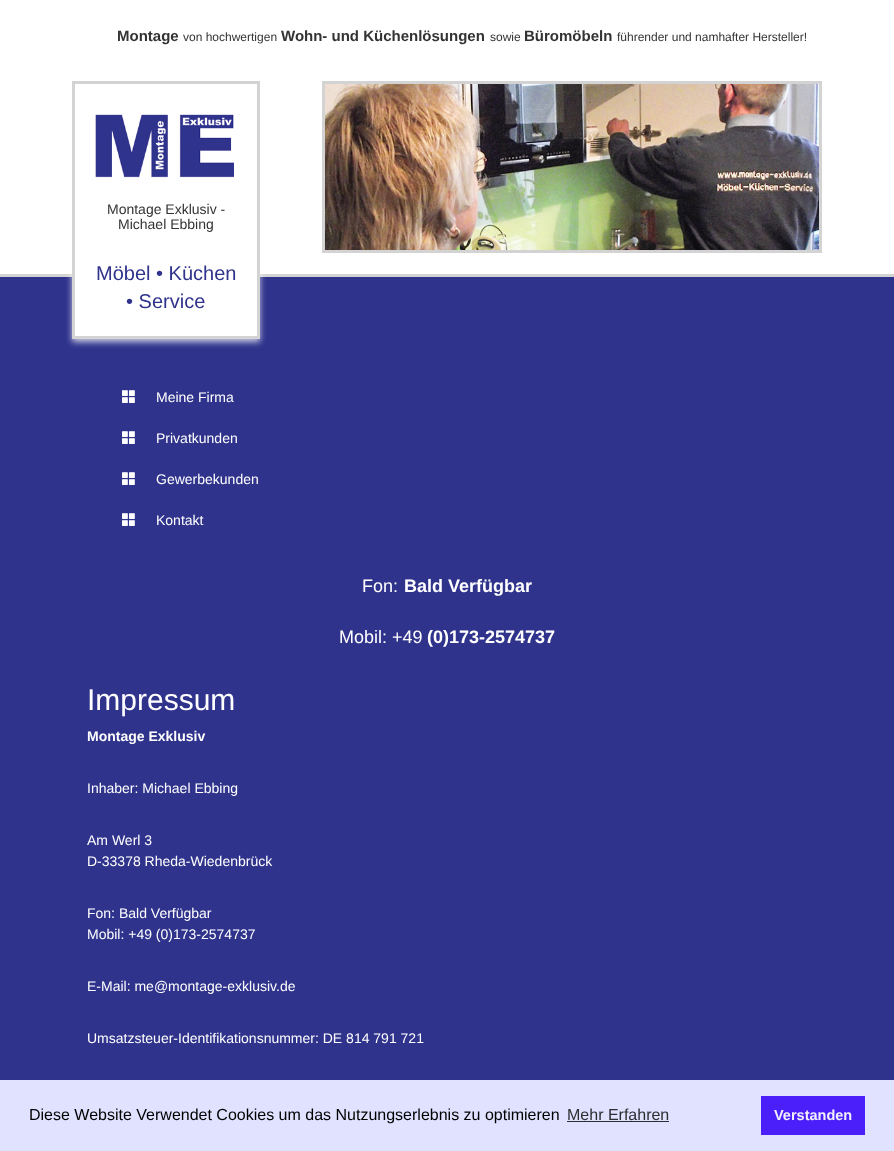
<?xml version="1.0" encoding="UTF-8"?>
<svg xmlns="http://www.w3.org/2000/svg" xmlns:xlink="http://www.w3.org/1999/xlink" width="894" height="1151">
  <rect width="100%" height="100%" fill="#ffffff" />
  <rect y="277" width="894" height="803" fill="#2f338c" />
  <rect y="274" width="894" height="3" fill="#d3d3d3" />
  <rect x="72" y="84" width="188" height="258" fill="#ffffff" fill-opacity="0.75" filter="blur(3px)" />
  <rect x="75" y="274" width="182" height="62" fill="#ffffff" />
  <rect x="73.5" y="82.5" width="185" height="255" fill="none" stroke="#d3d3d3" stroke-width="3" />
  <image x="95" y="114" width="139" height="64" xlink:href="image1.png" />
  <rect x="323.5" y="82.5" width="497" height="169" fill="none" stroke="#d3d3d3" stroke-width="3" />
  <image x="325" y="84" width="494" height="166" xlink:href="image2.png" />
  <image x="122" y="390" width="13" height="13" xlink:href="image3.png" />
  <image x="122" y="431" width="13" height="13" xlink:href="image3.png" />
  <image x="122" y="472" width="13" height="13" xlink:href="image3.png" />
  <image x="122" y="513" width="13" height="13" xlink:href="image3.png" />
  <rect y="1080" width="894" height="71" fill="#e0e2ff" />
  <rect x="567" y="1121" width="102" height="1" fill="#2d2d33" />
  <rect x="761" y="1096" width="104" height="39" fill="#4b1ffa" />
  <text x="117" y="41" style="font-family: Liberation Sans; font-size: 15px; font-weight: bold; fill: #333333">Montage</text>
  <text x="183" y="41" style="font-family: Liberation Sans; font-size: 12px; fill: #333333">von hochwertigen</text>
  <text x="281" y="41" style="font-family: Liberation Sans; font-size: 15px; font-weight: bold; fill: #333333">Wohn- und Küchenlösungen</text>
  <text x="490" y="41" style="font-family: Liberation Sans; font-size: 12px; fill: #333333">sowie</text>
  <text x="524" y="41" style="font-family: Liberation Sans; font-size: 15px; font-weight: bold; fill: #333333">Büromöbeln</text>
  <text x="617" y="41" style="font-family: Liberation Sans; font-size: 12px; fill: #333333">führender und namhafter Hersteller!</text>
  <text x="107" y="214" style="font-family: Liberation Sans; font-size: 14px; fill: #333333">Montage Exklusiv -</text>
  <text x="118" y="229" style="font-family: Liberation Sans; font-size: 14px; fill: #333333">Michael Ebbing</text>
  <text x="96" y="280" style="font-family: Liberation Sans; font-size: 20px; fill: #2f338c">Möbel • Küchen</text>
  <text x="126" y="308" style="font-family: Liberation Sans; font-size: 20px; fill: #2f338c">• Service</text>
  <text x="156" y="402" style="font-family: Liberation Sans; font-size: 14px; fill: #ffffff">Meine Firma</text>
  <text x="156" y="443" style="font-family: Liberation Sans; font-size: 14px; fill: #ffffff">Privatkunden</text>
  <text x="156" y="484" style="font-family: Liberation Sans; font-size: 14px; fill: #ffffff">Gewerbekunden</text>
  <text x="156" y="525" style="font-family: Liberation Sans; font-size: 14px; fill: #ffffff">Kontakt</text>
  <text x="362" y="592" style="font-family: Liberation Sans; font-size: 18px; fill: #ffffff">Fon:</text>
  <text x="404" y="592" style="font-family: Liberation Sans; font-size: 18px; font-weight: bold; fill: #ffffff">Bald Verfügbar</text>
  <text x="339" y="643" style="font-family: Liberation Sans; font-size: 18px; fill: #ffffff">Mobil: +49</text>
  <text x="427" y="643" style="font-family: Liberation Sans; font-size: 18px; font-weight: bold; fill: #ffffff">(0)173-2574737</text>
  <text x="87" y="710" style="font-family: Liberation Sans; font-size: 30px; fill: #ffffff">Impressum</text>
  <text x="87" y="741" style="font-family: Liberation Sans; font-size: 14px; font-weight: bold; fill: #ffffff">Montage Exklusiv</text>
  <text x="87" y="793" style="font-family: Liberation Sans; font-size: 14px; fill: #ffffff">Inhaber: Michael Ebbing</text>
  <text x="87" y="845" style="font-family: Liberation Sans; font-size: 14px; fill: #ffffff">Am Werl 3</text>
  <text x="87" y="866" style="font-family: Liberation Sans; font-size: 14px; fill: #ffffff">D-33378 Rheda-Wiedenbrück</text>
  <text x="87" y="918" style="font-family: Liberation Sans; font-size: 14px; fill: #ffffff">Fon: Bald Verfügbar</text>
  <text x="87" y="939" style="font-family: Liberation Sans; font-size: 14px; fill: #ffffff">Mobil: +49 (0)173-2574737</text>
  <text x="87" y="991" style="font-family: Liberation Sans; font-size: 14px; fill: #ffffff">E-Mail: me@montage-exklusiv.de</text>
  <text x="87" y="1043" style="font-family: Liberation Sans; font-size: 14px; fill: #ffffff">Umsatzsteuer-Identifikationsnummer: DE 814 791 721</text>
  <text x="29" y="1120" style="font-family: Liberation Sans; font-size: 16px; fill: #000000">Diese Website Verwendet Cookies um das Nutzungserlebnis zu optimieren</text>
  <text x="567" y="1120" style="font-family: Liberation Sans; font-size: 16px; fill: #2d2d33">Mehr Erfahren</text>
  <text x="774" y="1120" style="font-family: Liberation Sans; font-size: 14.5px; font-weight: bold; fill: #f2f1ff">Verstanden</text>
</svg>
